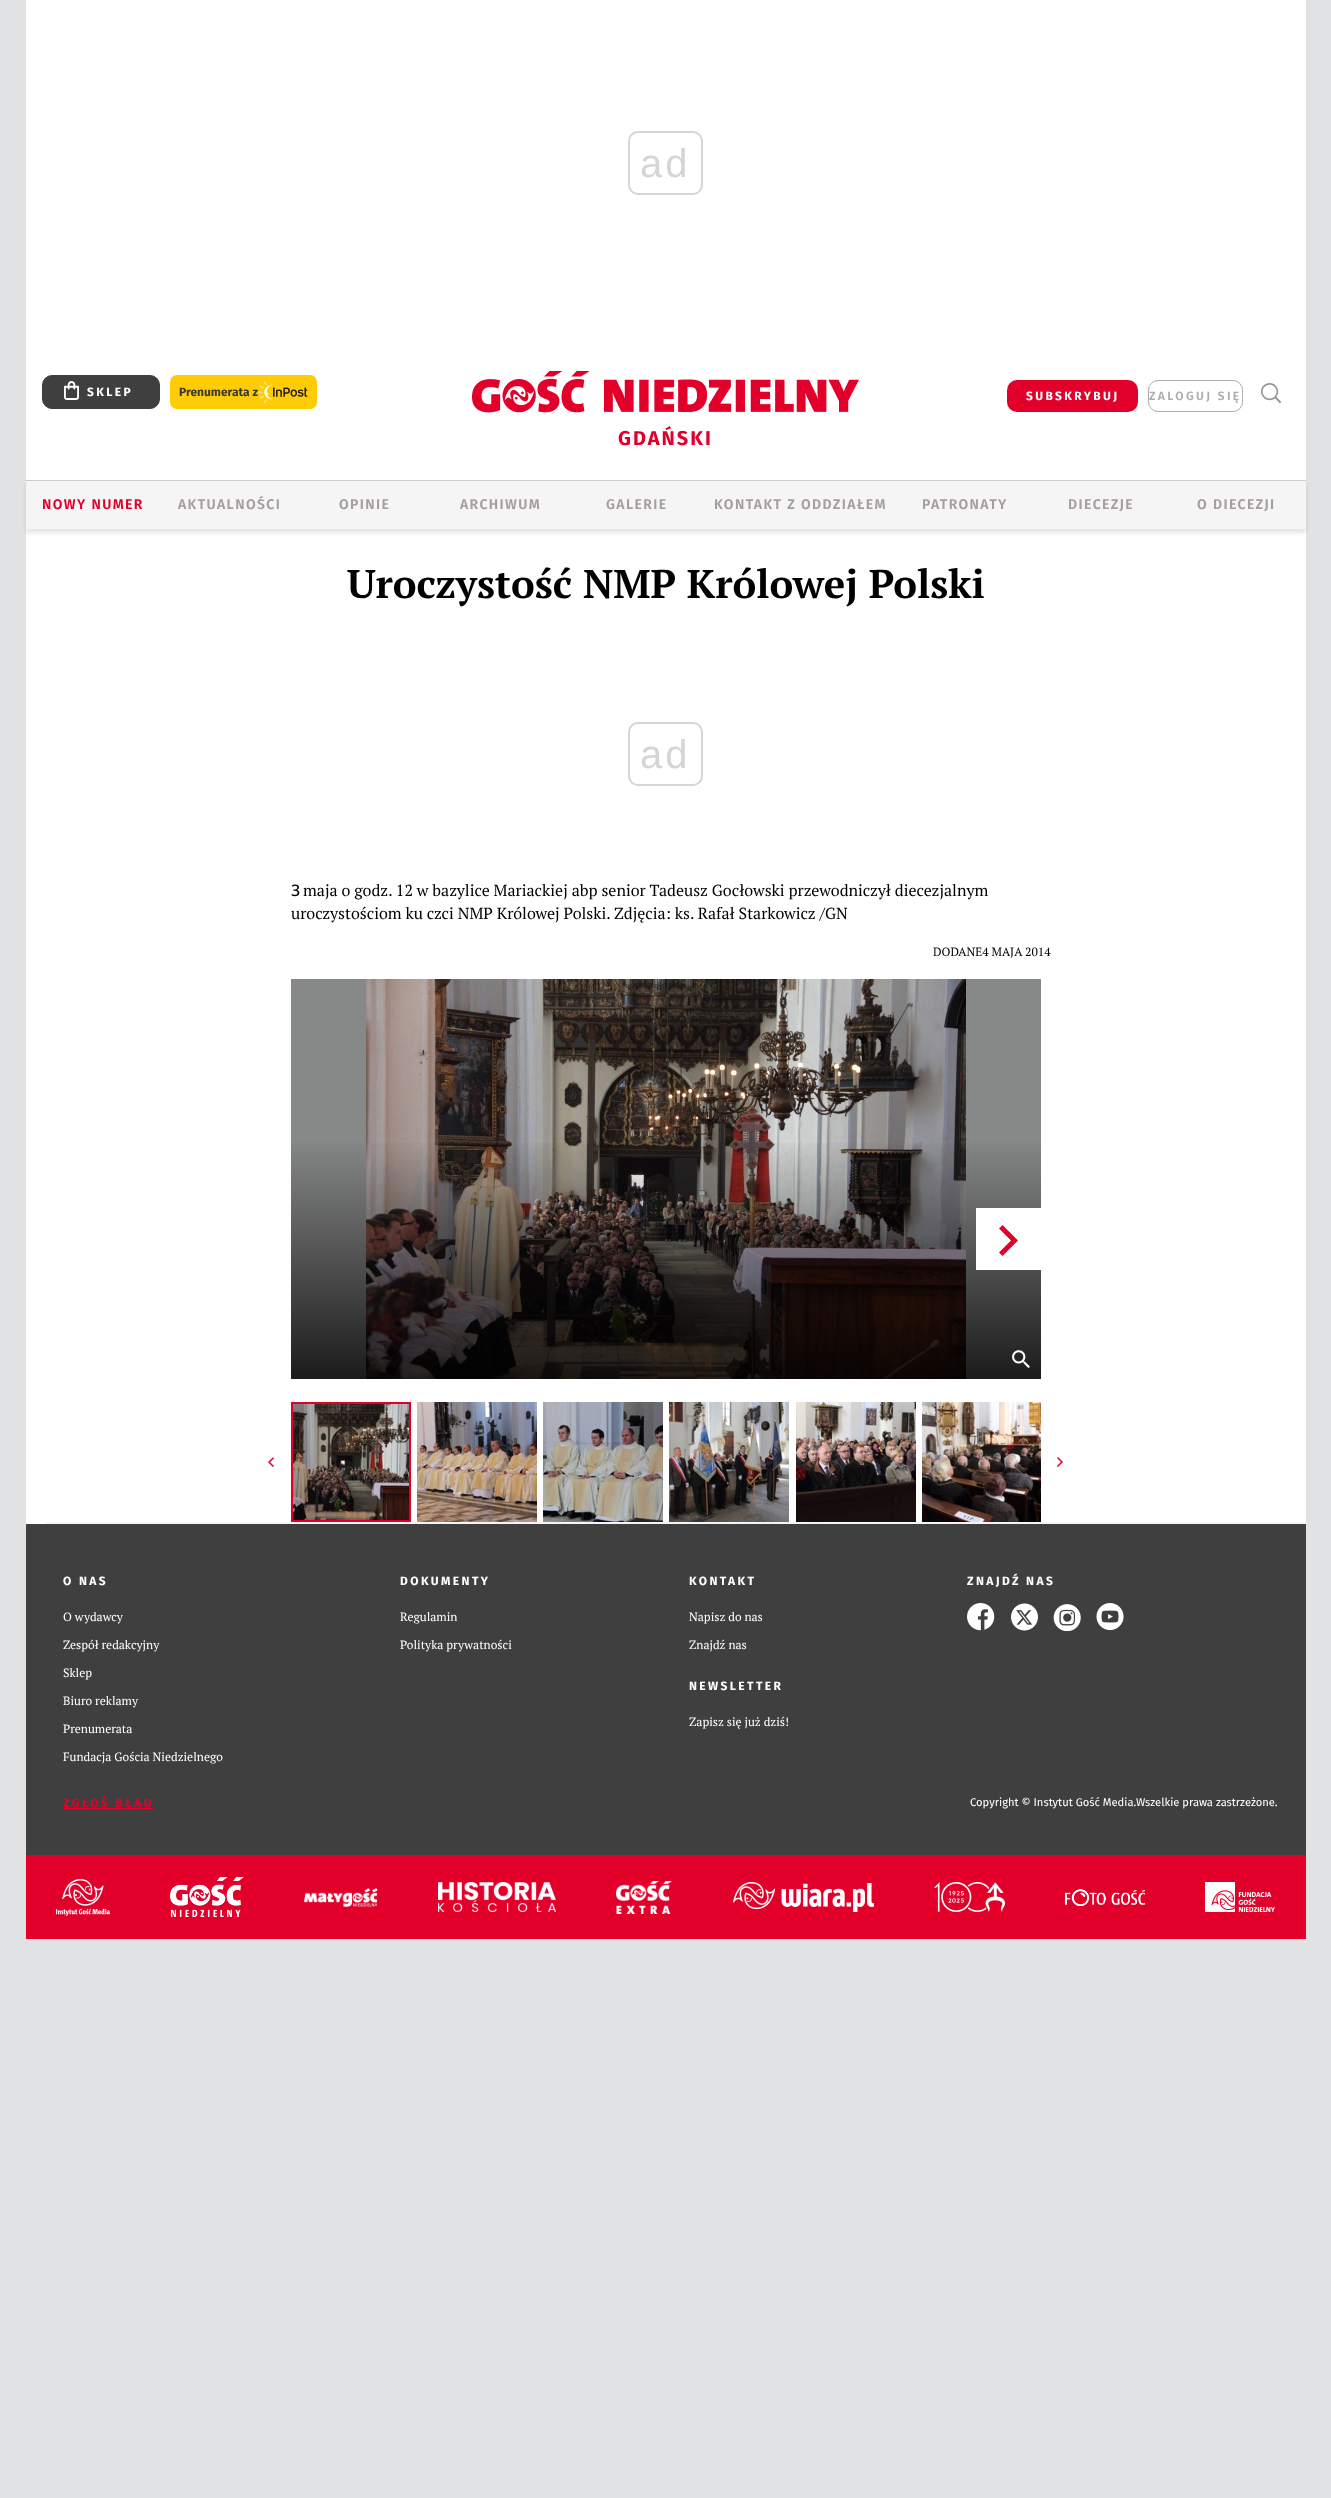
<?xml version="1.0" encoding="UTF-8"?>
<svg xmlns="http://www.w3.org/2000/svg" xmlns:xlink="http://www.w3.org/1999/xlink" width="1331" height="2498">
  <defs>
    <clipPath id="clip1"><path d="M 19 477 h 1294 v 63 h -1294 z m 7 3 h 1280 v 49 h -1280 z" clip-rule="evenodd" /></clipPath>
    <linearGradient id="g1" gradientUnits="userSpaceOnUse" x1="666" y1="1379" x2="666" y2="1136"><stop offset="0" stop-color="#000000" stop-opacity="0.8" /><stop offset="1" stop-color="#000000" stop-opacity="0" /></linearGradient>
  </defs>
  <rect width="100%" height="100%" fill="#e1e2e4" />
  <rect x="26" width="1280" height="355" fill="#ffffff" />
  <rect x="629" y="132" width="73" height="62" rx="9" fill="none" stroke="#d5d5d5" stroke-width="2" />
  <rect x="26" y="481" width="1280" height="48" fill="#f5f5f5" />
  <rect x="26" y="355" width="1280" height="125" fill="#ffffff" />
  <rect x="42.5" y="375.5" width="117" height="33" rx="9.5" fill="#3f3f3f" stroke="#3f3f3f" />
  <image x="64" y="381" width="15" height="19" xlink:href="image1.png" />
  <rect x="170" y="375" width="147" height="34" rx="7" fill="#ffcc05" />
  <image x="258" y="381" width="50" height="23" xlink:href="image2.png" />
  <rect x="1007" y="380" width="131" height="32" rx="10" fill="#e2002b" />
  <rect x="1148.5" y="380.5" width="94" height="31" rx="9.5" fill="none" stroke="#adadad" />
  <image x="1261" y="383" width="20" height="20" xlink:href="image3.png" />
  <image x="472" y="371" width="387" height="42" xlink:href="image4.png" />
  <rect x="26" y="529" width="1280" height="995" fill="#ffffff" />
  <g clip-path="url(#clip1)">
    <rect x="26" y="484" width="1280" height="49" fill="#000000" fill-opacity="0.1" filter="blur(2px)" />
  </g>
  <rect x="26" y="480" width="1280" height="1" fill="#cccccc" />
  <rect x="629" y="723" width="73" height="62" rx="9" fill="none" stroke="#d5d5d5" stroke-width="2" />
  <rect x="291" y="979" width="750" height="400" fill="#878988" />
  <image x="366" y="979" width="600" height="400" xlink:href="image5.png" />
  <rect x="291" y="1143" width="750" height="236" fill="url(#g1)" />
  <image x="1012" y="1350" width="18" height="18" xlink:href="image6.png" />
  <rect x="976" y="1208" width="65" height="62" fill="#ffffff" />
  <path d="M 999 1228.5 l 3.5 -3.5 l 15.5 15.5 l -15.5 15.5 l -3.5 -3.5 l 12 -12 z" fill="#e2002b" />
  <image x="268" y="1457" width="6" height="10" xlink:href="image7.png" />
  <image x="293" y="1404" width="116" height="116" xlink:href="image8.png" />
  <rect x="292" y="1403" width="118" height="118" fill="none" stroke="#e2002b" stroke-width="2" />
  <image x="417" y="1402" width="120" height="120" xlink:href="image9.png" />
  <image x="543" y="1402" width="120" height="120" xlink:href="image10.png" />
  <image x="669" y="1402" width="120" height="120" xlink:href="image11.png" />
  <image x="796" y="1402" width="120" height="120" xlink:href="image12.png" />
  <image x="922" y="1402" width="119" height="120" xlink:href="image13.png" />
  <image x="1057" y="1457" width="6" height="10" xlink:href="image14.png" />
  <rect x="46" y="1522" width="1260" height="2" fill="#f5f5f5" />
  <rect x="26" y="1524" width="1280" height="331" fill="#3f3f3f" />
  <image x="967" y="1603" width="28" height="28" xlink:href="image15.png" />
  <image x="1011" y="1603" width="27" height="28" xlink:href="image16.png" />
  <image x="1053" y="1604" width="28" height="27" xlink:href="image17.png" />
  <image x="1096" y="1603" width="28" height="28" xlink:href="image18.png" />
  <rect x="26" y="1855" width="1280" height="84" fill="#e2002b" />
  <image x="56" y="1879" width="54" height="37" xlink:href="image19.png" />
  <image x="170" y="1877" width="74" height="40" xlink:href="image20.png" />
  <image x="304" y="1888" width="74" height="19" xlink:href="image21.png" />
  <image x="438" y="1882" width="118" height="30" xlink:href="image22.png" />
  <image x="616" y="1881" width="56" height="33" xlink:href="image23.png" />
  <image x="733" y="1882" width="141" height="30" xlink:href="image24.png" />
  <image x="934" y="1882" width="71" height="30" xlink:href="image25.png" />
  <image x="1065" y="1889" width="80" height="17" xlink:href="image26.png" />
  <image x="1205" y="1882" width="70" height="30" xlink:href="image27.png" />
  <rect x="63" y="1808" width="91" height="1" fill="#e2002b" />
  <text x="640" y="177" style="font-family: Liberation Sans; font-size: 40px; letter-spacing: 3px; fill: #d5d5d5">ad</text>
  <text x="87" y="396" style="font-family: Fira Sans; font-size: 12px; font-weight: bold; letter-spacing: 2.4px; fill: #ffffff">SKLEP</text>
  <text x="179" y="396" style="font-family: 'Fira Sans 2'; font-size: 12px; font-weight: bold; fill: #383838">Prenumerata z</text>
  <text x="1026" y="400" style="font-family: Fira Sans; font-size: 12px; font-weight: bold; letter-spacing: 2.4px; fill: #ffffff">SUBSKRYBUJ</text>
  <text x="1149" y="400" style="font-family: Fira Sans; font-size: 12px; font-weight: 600; letter-spacing: 2.4px; fill: #adadad">ZALOGUJ SIĘ</text>
  <text x="618" y="445" style="font-family: Fira Sans; font-size: 20px; font-weight: bold; letter-spacing: 2px; fill: #e2002b">GDAŃSKI</text>
  <text x="42" y="509" style="font-family: Fira Sans; font-size: 14px; font-weight: 600; letter-spacing: 1.4px; fill: #e2002b">NOWY NUMER</text>
  <text x="178" y="509" style="font-family: Fira Sans; font-size: 14px; font-weight: 600; letter-spacing: 1.4px; fill: #a69d9d">AKTUALNOŚCI</text>
  <text x="339" y="509" style="font-family: Fira Sans; font-size: 14px; font-weight: 600; letter-spacing: 1.4px; fill: #a69d9d">OPINIE</text>
  <text x="460" y="509" style="font-family: Fira Sans; font-size: 14px; font-weight: 600; letter-spacing: 1.4px; fill: #a69d9d">ARCHIWUM</text>
  <text x="606" y="509" style="font-family: Fira Sans; font-size: 14px; font-weight: 600; letter-spacing: 1.4px; fill: #a69d9d">GALERIE</text>
  <text x="714" y="509" style="font-family: Fira Sans; font-size: 14px; font-weight: 600; letter-spacing: 1.4px; fill: #a69d9d">KONTAKT Z ODDZIAŁEM</text>
  <text x="922" y="509" style="font-family: Fira Sans; font-size: 14px; font-weight: 600; letter-spacing: 1.4px; fill: #a69d9d">PATRONATY</text>
  <text x="1068" y="509" style="font-family: Fira Sans; font-size: 14px; font-weight: 600; letter-spacing: 1.4px; fill: #a69d9d">DIECEZJE</text>
  <text x="1197" y="509" style="font-family: Fira Sans; font-size: 14px; font-weight: 600; letter-spacing: 1.4px; fill: #a69d9d">O DIECEZJI</text>
  <text x="347" y="598" style="font-family: PT Serif; font-size: 40px; font-weight: bold; fill: #000000">Uroczystość NMP Królowej Polski</text>
  <text x="640" y="768" style="font-family: Liberation Sans; font-size: 40px; letter-spacing: 3px; fill: #d5d5d5">ad</text>
  <text x="291" y="896" style="font-family: Noto Sans; font-size: 16px; font-weight: 500; fill: #000000">3</text>
  <text x="303" y="896" style="font-family: PT Serif; font-size: 16px; fill: #000000">maja o godz. 12 w bazylice Mariackiej abp senior Tadeusz Gocłowski przewodniczył diecezjalnym</text>
  <text x="291" y="919" style="font-family: PT Serif; font-size: 16px; fill: #000000">uroczystościom ku czci NMP Królowej Polski. Zdjęcia: ks. Rafał Starkowicz /GN</text>
  <text x="933" y="956" style="font-family: PT Serif; font-size: 12px; fill: #000000">DODANE4 MAJA 2014</text>
  <text x="63" y="1585" style="font-family: Fira Sans; font-size: 12px; font-weight: bold; letter-spacing: 2.4px; fill: #ffffff">O NAS</text>
  <text x="63" y="1621" style="font-family: PT Serif; font-size: 12px; fill: #ffffff">O wydawcy</text>
  <text x="63" y="1649" style="font-family: PT Serif; font-size: 12px; fill: #ffffff">Zespół redakcyjny</text>
  <text x="63" y="1677" style="font-family: PT Serif; font-size: 12px; fill: #ffffff">Sklep</text>
  <text x="63" y="1705" style="font-family: PT Serif; font-size: 12px; fill: #ffffff">Biuro reklamy</text>
  <text x="63" y="1733" style="font-family: PT Serif; font-size: 12px; fill: #ffffff">Prenumerata</text>
  <text x="63" y="1761" style="font-family: PT Serif; font-size: 12px; fill: #ffffff">Fundacja Gościa Niedzielnego</text>
  <text x="400" y="1585" style="font-family: Fira Sans; font-size: 12px; font-weight: bold; letter-spacing: 2.4px; fill: #ffffff">DOKUMENTY</text>
  <text x="400" y="1621" style="font-family: PT Serif; font-size: 12px; fill: #ffffff">Regulamin</text>
  <text x="400" y="1649" style="font-family: PT Serif; font-size: 12px; fill: #ffffff">Polityka prywatności</text>
  <text x="689" y="1585" style="font-family: Fira Sans; font-size: 12px; font-weight: bold; letter-spacing: 2.4px; fill: #ffffff">KONTAKT</text>
  <text x="689" y="1621" style="font-family: PT Serif; font-size: 12px; fill: #ffffff">Napisz do nas</text>
  <text x="689" y="1649" style="font-family: PT Serif; font-size: 12px; fill: #ffffff">Znajdź nas</text>
  <text x="689" y="1690" style="font-family: Fira Sans; font-size: 12px; font-weight: bold; letter-spacing: 2.4px; fill: #ffffff">NEWSLETTER</text>
  <text x="689" y="1726" style="font-family: PT Serif; font-size: 12px; fill: #ffffff">Zapisz się już dziś!</text>
  <text x="967" y="1585" style="font-family: Fira Sans; font-size: 12px; font-weight: bold; letter-spacing: 2.4px; fill: #ffffff">ZNAJDŹ NAS</text>
  <text x="63" y="1807" style="font-family: Fira Sans; font-size: 12px; font-weight: bold; letter-spacing: 2.4px; fill: #e2002b">ZGŁOŚ BŁĄD</text>
  <text x="970" y="1806" style="font-family: Fira Sans; font-size: 11.2px; fill: #ffffff">Copyright © Instytut Gość Media.Wszelkie prawa zastrzeżone.</text>
</svg>
